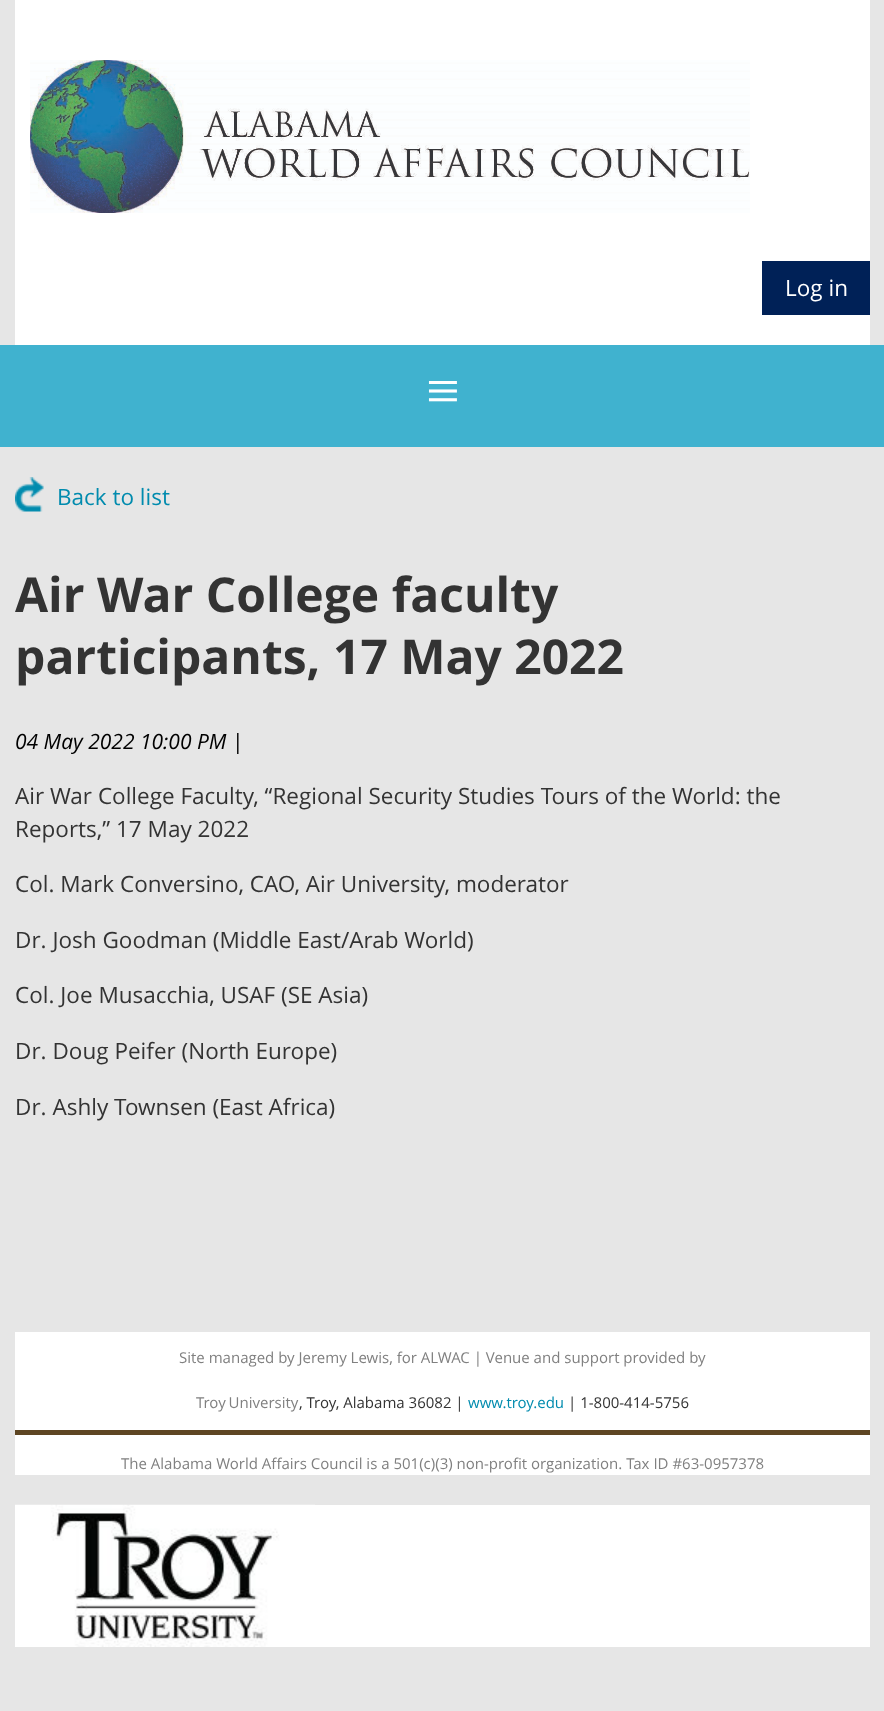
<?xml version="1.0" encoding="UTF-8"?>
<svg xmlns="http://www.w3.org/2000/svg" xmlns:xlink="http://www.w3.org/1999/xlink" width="884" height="1711">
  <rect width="100%" height="100%" fill="#e6e6e6" />
  <rect x="15" width="855" height="345" fill="#ffffff" />
  <image x="30" y="60" width="720" height="153" xlink:href="image1.png" />
  <rect x="762" y="261" width="108" height="54" fill="#002157" />
  <rect y="345" width="884" height="102" fill="#40b2cf" />
  <image x="15" y="477" width="29" height="35" xlink:href="image2.png" />
  <rect x="15" y="1332" width="855" height="143" fill="#ffffff" />
  <rect x="15" y="1430" width="855" height="5" fill="#5e4623" />
  <rect x="315" y="1505" width="555" height="142" fill="#ffffff" />
  <image x="15" y="1504" width="300" height="143" xlink:href="image3.png" />
  <text x="785" y="296" style="font-family: Open Sans; font-size: 22.5px; fill: #ffffff">Log in</text>
  <text x="426" y="411" style="font-family: Liberation Serif; font-size: 60px; fill: #ffffff">≡</text>
  <text x="57" y="505" style="font-family: Open Sans; font-size: 22.5px; fill: #008bae">Back to list</text>
  <text x="15" y="612" style="font-family: Open Sans; font-size: 48px; font-weight: bold; fill: #333333">Air War College faculty</text>
  <text x="15" y="674" style="font-family: Open Sans; font-size: 48px; font-weight: bold; fill: #333333">participants, 17 May 2022</text>
  <text x="15" y="749" style="font-family: Open Sans; font-size: 21px; font-style: italic; fill: #000000">04 May 2022 10:00 PM</text>
  <text x="232" y="749" style="font-family: Open Sans; font-size: 21px; fill: #000000">|</text>
  <text x="15" y="804" style="font-family: Open Sans; font-size: 22.5px; fill: #333333">Air War College Faculty, “Regional Security Studies Tours of the World: the</text>
  <text x="15" y="837" style="font-family: Open Sans; font-size: 22.5px; fill: #333333">Reports,” 17 May 2022</text>
  <text x="15" y="892" style="font-family: Open Sans; font-size: 22.5px; fill: #333333">Col. Mark Conversino, CAO, Air University, moderator</text>
  <text x="15" y="948" style="font-family: Open Sans; font-size: 22.5px; fill: #333333">Dr. Josh Goodman (Middle East/Arab World)</text>
  <text x="15" y="1003" style="font-family: Open Sans; font-size: 22.5px; fill: #333333">Col. Joe Musacchia, USAF (SE Asia)</text>
  <text x="15" y="1059" style="font-family: Open Sans; font-size: 22.5px; fill: #333333">Dr. Doug Peifer (North Europe)</text>
  <text x="15" y="1115" style="font-family: Open Sans; font-size: 22.5px; fill: #333333">Dr. Ashly Townsen (East Africa)</text>
  <text x="179" y="1363" style="font-family: Open Sans; font-size: 15px; fill: #808080">Site managed by Jeremy Lewis, for ALWAC | Venue and support provided by</text>
  <text x="196" y="1408" word-spacing="-1" style="font-family: Open Sans; font-size: 15px; fill: #808080">Troy University</text>
  <text x="299" y="1408" style="font-family: Open Sans; font-size: 15px; fill: #333333">, Troy, Alabama 36082 |</text>
  <text x="468" y="1408" style="font-family: Open Sans; font-size: 15px; fill: #008bae">www.troy.edu</text>
  <text x="568" y="1408" style="font-family: Open Sans; font-size: 15px; fill: #333333">| 1-800-414-5756</text>
  <text x="121" y="1469" style="font-family: Open Sans; font-size: 15px; fill: #808080">The Alabama World Affairs Council is a 501(c)(3) non-profit organization. Tax ID #63-0957378</text>
</svg>
